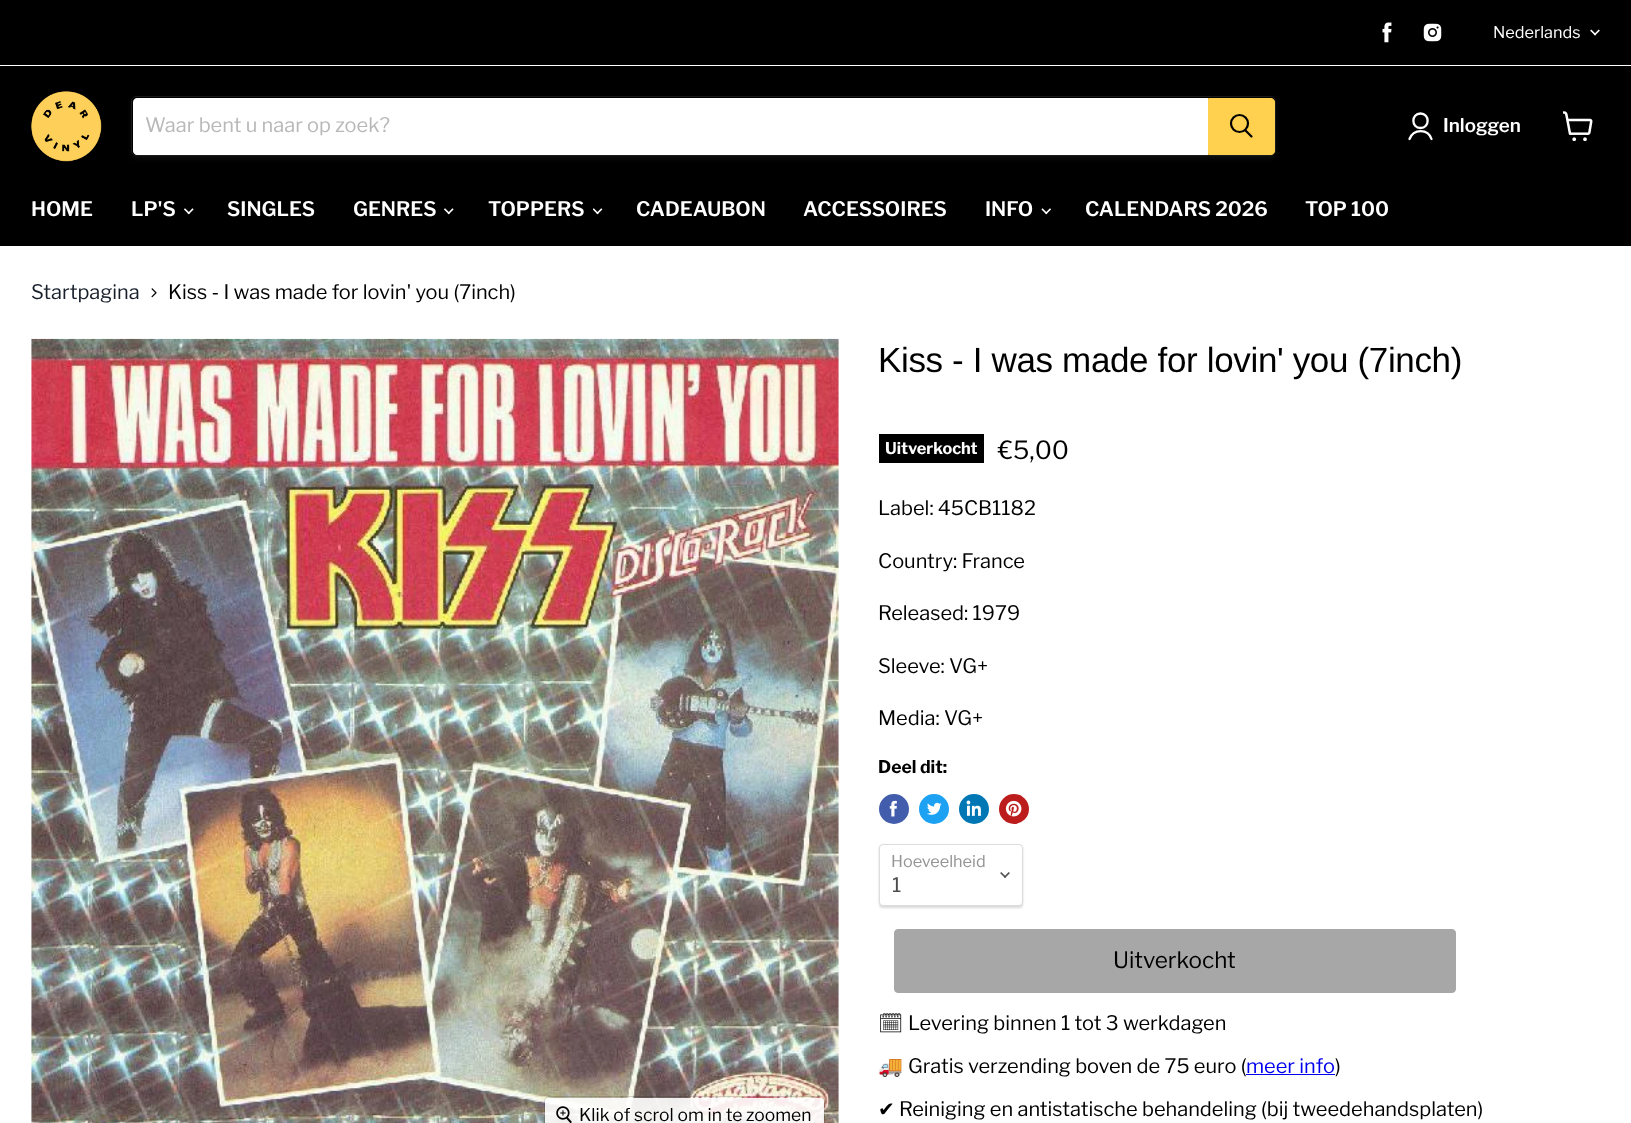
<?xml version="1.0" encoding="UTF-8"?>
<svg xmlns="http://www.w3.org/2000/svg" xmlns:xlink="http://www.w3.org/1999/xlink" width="1631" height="1123">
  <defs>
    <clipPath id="clip1"><path d="M 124 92 h 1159 v 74 h -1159 z m 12 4 h 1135 c 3 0 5 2 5 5 v 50 c 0 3 -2 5 -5 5 h -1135 c -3 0 -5 -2 -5 -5 v -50 c 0 -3 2 -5 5 -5 z" clip-rule="evenodd" /></clipPath>
  </defs>
  <rect width="100%" height="100%" fill="#ffffff" />
  <rect width="1631" height="65" fill="#000000" />
  <image x="1382" y="22" width="10" height="21" xlink:href="image1.png" />
  <image x="1423" y="23" width="19" height="19" xlink:href="image2.png" />
  <image x="1590" y="29" width="10" height="7" xlink:href="image3.png" />
  <rect y="66" width="1631" height="180" fill="#000000" />
  <image x="31" y="91" width="71" height="71" xlink:href="image4.png" />
  <g clip-path="url(#clip1)">
    <rect x="131" y="99" width="1145" height="60" rx="5" fill="#808080" fill-opacity="0.11" filter="blur(2px)" />
  </g>
  <rect x="131.5" y="96.5" width="1144" height="59" rx="4.5" fill="none" stroke="#808080" stroke-opacity="0.2" />
  <path d="M 137 98 h 1071 v 57 h -1071 c -2 0 -4 -2 -4 -4 v -49 c 0 -2 2 -4 4 -4 z" fill="#ffffff" />
  <path d="M 1208.5 98.5 h 62.5 c 2 0 3.5 1.5 3.5 3.5 v 49 c 0 2 -1.5 3.5 -3.5 3.5 h -62.5 z" fill="#ffd14f" stroke="#ffd14f" />
  <path d="M 1251.5 136.5 l -6 -6" fill="none" stroke="#000000" stroke-width="2.2" stroke-linecap="round" />
  <circle cx="1239.5" cy="123.5" r="8.5" fill="none" stroke="#000000" stroke-width="2.2" />
  <path d="M 1420.5 128 c 9.5 0 9.5 -14.5 0 -14.5 c -9.5 0 -9.5 14.5 0 14.5 z m 11 11 c -3.5 -10.5 -18 -10.5 -22 0" fill="none" stroke="#ffffff" stroke-width="2.3" stroke-linecap="round" stroke-linejoin="round" />
  <image x="1563" y="111" width="30" height="30" xlink:href="image5.png" />
  <image x="184" y="208" width="10" height="7" xlink:href="image6.png" />
  <image x="444" y="208" width="10" height="7" xlink:href="image6.png" />
  <image x="593" y="208" width="10" height="7" xlink:href="image7.png" />
  <image x="1041" y="208" width="10" height="7" xlink:href="image8.png" />
  <image x="151" y="288" width="6" height="10" xlink:href="image9.png" />
  <image x="31" y="338" width="808" height="785" xlink:href="image10.png" />
  <rect x="544.5" y="1096.5" width="280" height="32" rx="4.5" fill="none" stroke="#000000" stroke-opacity="0.15" />
  <rect x="545" y="1098" width="279" height="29" rx="4" fill="#ffffff" fill-opacity="0.9" />
  <image x="556" y="1106" width="16" height="17" xlink:href="image11.png" />
  <rect x="879" y="434" width="105" height="29" fill="#000000" />
  <circle cx="894" cy="809" r="15" fill="#425dab" />
  <image x="889" y="800" width="8" height="17" xlink:href="image12.png" />
  <circle cx="934" cy="809" r="15" fill="#1da1f2" />
  <image x="927" y="802" width="15" height="13" xlink:href="image13.png" />
  <circle cx="974" cy="809" r="15" fill="#0077b5" />
  <image x="966" y="800" width="15" height="16" xlink:href="image14.png" />
  <circle cx="1014" cy="809" r="15" fill="#bd1c1c" />
  <image x="1005" y="800" width="17" height="17" xlink:href="image15.png" />
  <rect x="879" y="845" width="144" height="63" rx="4" fill="#000000" fill-opacity="0.15" filter="blur(1px)" />
  <rect x="879.5" y="844.5" width="143" height="61" rx="3.5" fill="#ffffff" stroke="#dddddd" />
  <image x="1000" y="872" width="10" height="6" xlink:href="image16.png" />
  <rect x="894.5" y="929.5" width="561" height="63" rx="3.5" fill="#a7a7a7" stroke="#a7a7a7" />
  <rect x="1246" y="1074" width="89" height="1" fill="#0000ee" />
  <text x="1493" y="38" style="font-family: Libre Franklin; font-size: 16.25px; fill: #ffffff">Nederlands</text>
  <text x="145" y="132" style="font-family: Libre Franklin; font-size: 20px; fill: #b8b8b8">Waar bent u naar op zoek?</text>
  <text x="1443" y="132" style="font-family: Libre Franklin; font-size: 18.75px; font-weight: 600; fill: #ffffff">Inloggen</text>
  <text x="31" y="216" style="font-family: Libre Franklin; font-size: 20px; font-weight: 600; fill: #ffffff">HOME</text>
  <text x="131" y="216" style="font-family: Libre Franklin; font-size: 20px; font-weight: 600; fill: #ffffff">LP'S</text>
  <text x="227" y="216" style="font-family: Libre Franklin; font-size: 20px; font-weight: 600; fill: #ffffff">SINGLES</text>
  <text x="353" y="216" style="font-family: Libre Franklin; font-size: 20px; font-weight: 600; fill: #ffffff">GENRES</text>
  <text x="488" y="216" style="font-family: Libre Franklin; font-size: 20px; font-weight: 600; fill: #ffffff">TOPPERS</text>
  <text x="636" y="216" style="font-family: Libre Franklin; font-size: 20px; font-weight: 600; fill: #ffffff">CADEAUBON</text>
  <text x="803" y="216" style="font-family: Libre Franklin; font-size: 20px; font-weight: 600; fill: #ffffff">ACCESSOIRES</text>
  <text x="985" y="216" style="font-family: Libre Franklin; font-size: 20px; font-weight: 600; fill: #ffffff">INFO</text>
  <text x="1085" y="216" style="font-family: Libre Franklin; font-size: 20px; font-weight: 600; fill: #ffffff">CALENDARS 2026</text>
  <text x="1305" y="216" style="font-family: Libre Franklin; font-size: 20px; font-weight: 600; fill: #ffffff">TOP 100</text>
  <text x="31" y="299" style="font-family: Libre Franklin; font-size: 20px; fill: #171f2b">Startpagina</text>
  <text x="168" y="299" style="font-family: Libre Franklin; font-size: 20px; fill: #000000">Kiss - I was made for lovin' you (7inch)</text>
  <text x="579" y="1121" style="font-family: Libre Franklin; font-size: 17.5px; fill: #000000">Klik of scrol om in te zoomen</text>
  <text x="878" y="372" style="font-family: Arimo; font-size: 35px; letter-spacing: -0.35px; fill: #000000">Kiss - I was made for lovin' you (7inch)</text>
  <text x="885" y="454" style="font-family: Libre Franklin; font-size: 16.25px; font-weight: bold; fill: #ffffff">Uitverkocht</text>
  <text x="998" y="459" style="font-family: Libre Franklin; font-size: 25px; fill: #000000">€5,00</text>
  <text x="878" y="515" style="font-family: Libre Franklin; font-size: 20px; fill: #000000">Label: 45CB1182</text>
  <text x="878" y="568" style="font-family: Libre Franklin; font-size: 20px; fill: #000000">Country: France</text>
  <text x="878" y="620" style="font-family: Libre Franklin; font-size: 20px; fill: #000000">Released: 1979</text>
  <text x="878" y="673" style="font-family: Libre Franklin; font-size: 20px; fill: #000000">Sleeve: VG+</text>
  <text x="878" y="725" style="font-family: Libre Franklin; font-size: 20px; fill: #000000">Media: VG+</text>
  <text x="878" y="773" style="font-family: Libre Franklin; font-size: 17.5px; font-weight: bold; fill: #000000">Deel dit:</text>
  <text x="891" y="867" style="font-family: Libre Franklin; font-size: 16.25px; fill: #949494">Hoeveelheid</text>
  <text x="892" y="892" style="font-family: Libre Franklin; font-size: 20px; fill: #4d4d4d">1</text>
  <text x="1113" y="968" style="font-family: Libre Franklin; font-size: 22.5px; fill: #000000">Uitverkocht</text>
  <text x="878" y="1030" style="font-family: Noto Emoji; font-size: 20px; fill: #000000">🗓</text>
  <text x="908" y="1030" style="font-family: Libre Franklin; font-size: 20px; fill: #000000">Levering binnen 1 tot 3 werkdagen</text>
  <text x="878" y="1073" style="font-family: Noto Color Emoji; font-size: 20px; fill: #000000">🚚</text>
  <text x="908" y="1073" style="font-family: Libre Franklin; font-size: 20px; fill: #000000">Gratis verzending boven de 75 euro (</text>
  <text x="1246" y="1073" style="font-family: Libre Franklin; font-size: 20px; fill: #0000ee">meer info</text>
  <text x="1335" y="1073" style="font-family: Libre Franklin; font-size: 20px; fill: #000000">)</text>
  <text x="878" y="1116" style="font-family: DejaVu Sans; font-size: 20px; fill: #000000">✔</text>
  <text x="899" y="1116" style="font-family: Libre Franklin; font-size: 20px; fill: #000000">Reiniging en antistatische behandeling (bij tweedehandsplaten)</text>
</svg>
